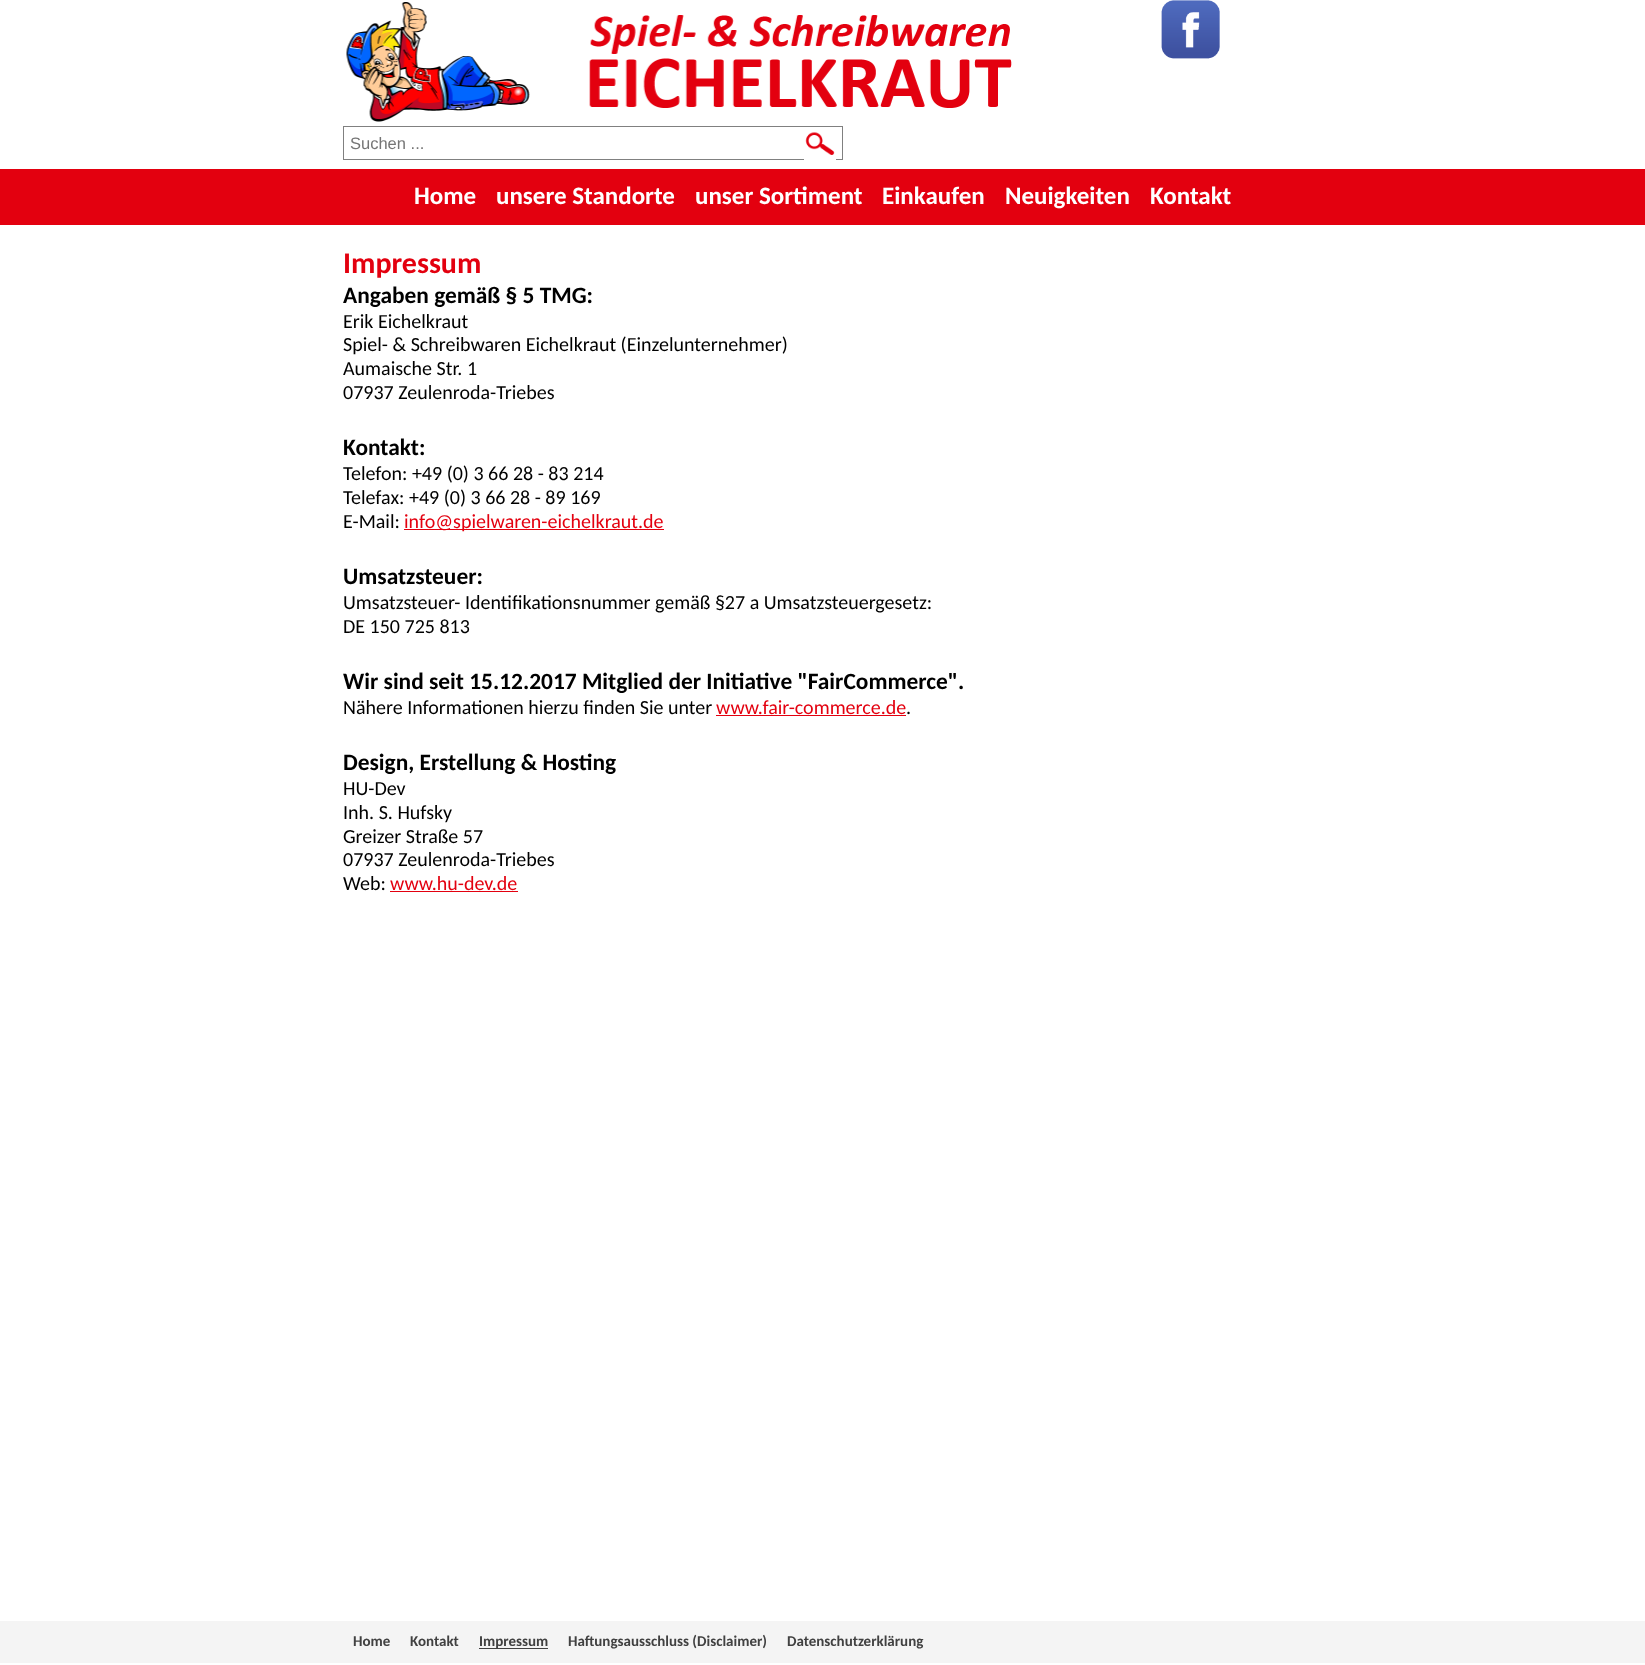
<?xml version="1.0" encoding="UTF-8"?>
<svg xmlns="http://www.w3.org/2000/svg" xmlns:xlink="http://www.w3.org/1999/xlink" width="1645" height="1665">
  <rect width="100%" height="100%" fill="#ffffff" />
  <image x="346" y="2" width="666" height="120" xlink:href="image1.png" />
  <image x="1161" y="0" width="59" height="59" xlink:href="image2.png" />
  <rect x="343.5" y="126.5" width="499" height="33" fill="none" stroke="#808080" />
  <rect x="804" y="159" width="32" height="1" fill="#ffffff" />
  <image x="805" y="132" width="30" height="23" xlink:href="image3.png" />
  <rect y="169" width="1645" height="56" fill="#e3000f" />
  <rect x="404" y="529" width="260" height="1" fill="#e3000f" />
  <rect x="716" y="715" width="190" height="1" fill="#e3000f" />
  <rect x="390" y="891" width="128" height="1" fill="#e3000f" />
  <rect y="1621" width="1645" height="42" fill="#f4f4f4" />
  <rect x="479" y="1648" width="69" height="1" fill="#414141" />
  <text x="350" y="149" style="font-family: Liberation Sans; font-size: 16.5px; fill: #757575">Suchen ...</text>
  <text x="414" y="204" style="font-family: Carlito; font-size: 25px; font-weight: bold; fill: #ffffff">Home</text>
  <text x="496" y="204" style="font-family: Carlito; font-size: 25px; font-weight: bold; fill: #ffffff">unsere Standorte</text>
  <text x="695" y="204" style="font-family: Carlito; font-size: 25px; font-weight: bold; fill: #ffffff">unser Sortiment</text>
  <text x="882" y="204" style="font-family: Carlito; font-size: 25px; font-weight: bold; fill: #ffffff">Einkaufen</text>
  <text x="1005" y="204" style="font-family: Carlito; font-size: 25px; font-weight: bold; fill: #ffffff">Neuigkeiten</text>
  <text x="1150" y="204" style="font-family: Carlito; font-size: 25px; font-weight: bold; fill: #ffffff">Kontakt</text>
  <text x="343" y="273" style="font-family: Carlito; font-size: 30px; font-weight: bold; fill: #e3000f">Impressum</text>
  <text x="343" y="303" style="font-family: Carlito; font-size: 23.4px; font-weight: bold; fill: #000000">Angaben gemäß § 5 TMG:</text>
  <text x="343" y="328" style="font-family: Carlito; font-size: 20px; fill: #000000">Erik Eichelkraut</text>
  <text x="343" y="351" style="font-family: Carlito; font-size: 20px; fill: #000000">Spiel- &amp; Schreibwaren Eichelkraut (Einzelunternehmer)</text>
  <text x="343" y="375" style="font-family: Carlito; font-size: 20px; fill: #000000">Aumaische Str. 1</text>
  <text x="343" y="399" style="font-family: Carlito; font-size: 20px; fill: #000000">07937 Zeulenroda-Triebes</text>
  <text x="343" y="455" style="font-family: Carlito; font-size: 23.4px; font-weight: bold; fill: #000000">Kontakt:</text>
  <text x="343" y="480" style="font-family: Carlito; font-size: 20px; fill: #000000">Telefon: +49 (0) 3 66 28 - 83 214</text>
  <text x="343" y="504" style="font-family: Carlito; font-size: 20px; fill: #000000">Telefax: +49 (0) 3 66 28 - 89 169</text>
  <text x="343" y="528" style="font-family: Carlito; font-size: 20px; fill: #000000">E-Mail:</text>
  <text x="404" y="528" style="font-family: Carlito; font-size: 20px; fill: #e3000f">info@spielwaren-eichelkraut.de</text>
  <text x="343" y="584" style="font-family: Carlito; font-size: 23.4px; font-weight: bold; fill: #000000">Umsatzsteuer:</text>
  <text x="343" y="609" style="font-family: Carlito; font-size: 20px; fill: #000000">Umsatzsteuer- Identifikationsnummer gemäß §27 a Umsatzsteuergesetz:</text>
  <text x="343" y="633" style="font-family: Carlito; font-size: 20px; fill: #000000">DE 150 725 813</text>
  <text x="343" y="689" style="font-family: Carlito; font-size: 23.4px; font-weight: bold; fill: #000000">Wir sind seit 15.12.2017 Mitglied der Initiative "FairCommerce".</text>
  <text x="343" y="714" style="font-family: Carlito; font-size: 20px; fill: #000000">Nähere Informationen hierzu finden Sie unter</text>
  <text x="716" y="714" style="font-family: Carlito; font-size: 20px; fill: #e3000f">www.fair-commerce.de</text>
  <text x="906" y="714" style="font-family: Carlito; font-size: 20px; fill: #000000">.</text>
  <text x="343" y="770" style="font-family: Carlito; font-size: 23.4px; font-weight: bold; fill: #000000">Design, Erstellung &amp; Hosting</text>
  <text x="343" y="795" style="font-family: Carlito; font-size: 20px; fill: #000000">HU-Dev</text>
  <text x="343" y="819" style="font-family: Carlito; font-size: 20px; fill: #000000">Inh. S. Hufsky</text>
  <text x="343" y="843" style="font-family: Carlito; font-size: 20px; fill: #000000">Greizer Straße 57</text>
  <text x="343" y="866" style="font-family: Carlito; font-size: 20px; fill: #000000">07937 Zeulenroda-Triebes</text>
  <text x="343" y="890" style="font-family: Carlito; font-size: 20px; fill: #000000">Web:</text>
  <text x="390" y="890" style="font-family: Carlito; font-size: 20px; fill: #e3000f">www.hu-dev.de</text>
  <text x="353" y="1646" style="font-family: Carlito; font-size: 15px; font-weight: bold; fill: #414141">Home</text>
  <text x="410" y="1646" style="font-family: Carlito; font-size: 15px; font-weight: bold; fill: #414141">Kontakt</text>
  <text x="479" y="1646" style="font-family: Carlito; font-size: 15px; font-weight: bold; fill: #414141">Impressum</text>
  <text x="568" y="1646" style="font-family: Carlito; font-size: 15px; font-weight: bold; fill: #414141">Haftungsausschluss (Disclaimer)</text>
  <text x="787" y="1646" style="font-family: Carlito; font-size: 15px; font-weight: bold; fill: #414141">Datenschutzerklärung</text>
</svg>
